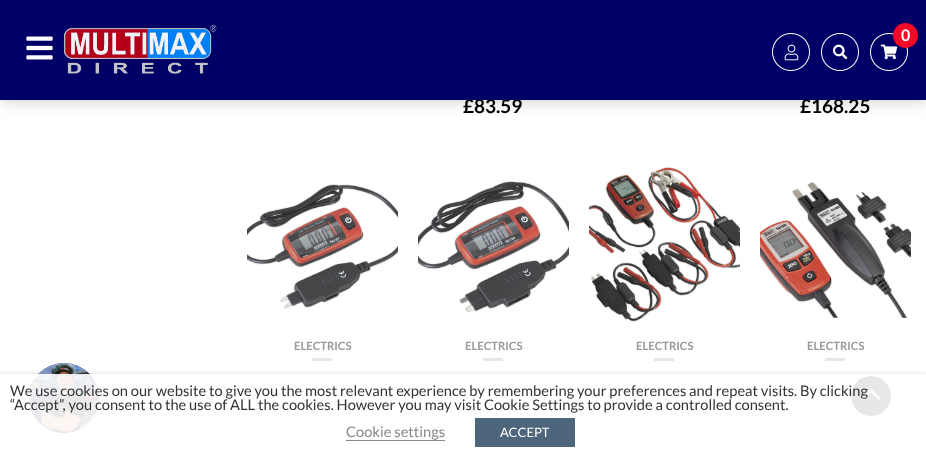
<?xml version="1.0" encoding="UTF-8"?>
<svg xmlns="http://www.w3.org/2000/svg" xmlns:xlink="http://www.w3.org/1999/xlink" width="926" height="462">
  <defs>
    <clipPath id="clip1"><rect x="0" y="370" width="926" height="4" /></clipPath>
  </defs>
  <rect width="100%" height="100%" fill="#ffffff" />
  <rect y="1" width="926" height="100" fill="#000000" fill-opacity="0.2" filter="blur(7.5px)" />
  <image x="247" y="184" width="151" height="125" xlink:href="image6.png" />
  <rect x="312" y="358" width="20" height="3" fill="#e6e6e6" />
  <image x="418" y="181" width="151" height="132" xlink:href="image7.png" />
  <rect x="483" y="358" width="20" height="3" fill="#e6e6e6" />
  <image x="589" y="167" width="151" height="155" xlink:href="image8.png" />
  <rect x="654" y="358" width="20" height="3" fill="#e6e6e6" />
  <image x="760" y="182" width="151" height="137" xlink:href="image9.png" />
  <rect x="825" y="358" width="20" height="3" fill="#e6e6e6" />
  <circle cx="64" cy="398" r="35" fill="#00058d" />
  <image x="29" y="363" width="70" height="70" xlink:href="image10.png" />
  <rect x="111" y="384" width="165" height="31" rx="10" fill="#000000" fill-opacity="0.15" filter="blur(4px)" />
  <rect x="111" y="383" width="165" height="31" rx="10" fill="#ffffff" />
  <path d="M 112 393 v 10 l -10 -5 z" fill="#ffffff" />
  <circle cx="871" cy="396" r="20" fill="#111111" />
  <image x="862" y="389" width="19" height="11" xlink:href="image11.png" />
  <g clip-path="url(#clip1)">
    <rect y="379" width="926" height="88" fill="#000000" fill-opacity="0.5" filter="blur(5px)" />
  </g>
  <rect x="29" y="374" width="862" height="59" fill="#ffffff" fill-opacity="0.9" />
  <rect x="346" y="440" width="99" height="1" fill="#898888" />
  <rect x="475" y="418" width="100" height="29" fill="#4e667b" />
  <text x="463" y="113" style="font-family: Lato; font-size: 19px; font-weight: bold; fill: #000000">£83.59</text>
  <text x="800" y="113" style="font-family: Lato; font-size: 19px; font-weight: bold; fill: #000000">£168.25</text>
  <rect width="926" height="100" fill="#000066" />
  <image x="870" y="33" width="38" height="38" xlink:href="image5.png" />
  <circle cx="905.5" cy="35.5" r="12.5" fill="#f40a27" />
  <text x="901" y="41" style="font-family: Lato; font-size: 16px; font-weight: bold; fill: #ffffff">0</text>
  <image x="821" y="33" width="38" height="38" xlink:href="image4.png" />
  <image x="772" y="33" width="38" height="38" xlink:href="image3.png" />
  <image x="26" y="36" width="27" height="24" xlink:href="image1.png" />
  <image x="63" y="24" width="154" height="50" xlink:href="image2.png" />
  <text x="294" y="350" style="font-family: Lato; font-size: 11.25px; font-weight: bold; fill: #999999">ELECTRICS</text>
  <text x="465" y="350" style="font-family: Lato; font-size: 11.25px; font-weight: bold; fill: #999999">ELECTRICS</text>
  <text x="636" y="350" style="font-family: Lato; font-size: 11.25px; font-weight: bold; fill: #999999">ELECTRICS</text>
  <text x="807" y="350" style="font-family: Lato; font-size: 11.25px; font-weight: bold; fill: #999999">ELECTRICS</text>
  <text x="10" y="396" style="font-family: Lato; font-size: 14.67px; fill: #333333">We use cookies on our website to give you the most relevant experience by remembering your preferences and repeat visits. By clicking</text>
  <text x="10" y="410" style="font-family: Lato; font-size: 14.67px; fill: #333333">“Accept”, you consent to the use of ALL the cookies. However you may visit Cookie Settings to provide a controlled consent.</text>
  <text x="346" y="437" style="font-family: Lato; font-size: 14.67px; fill: #898888">Cookie settings</text>
  <text x="500" y="437" style="font-family: Lato; font-size: 13px; fill: #ffffff">ACCEPT</text>
</svg>
